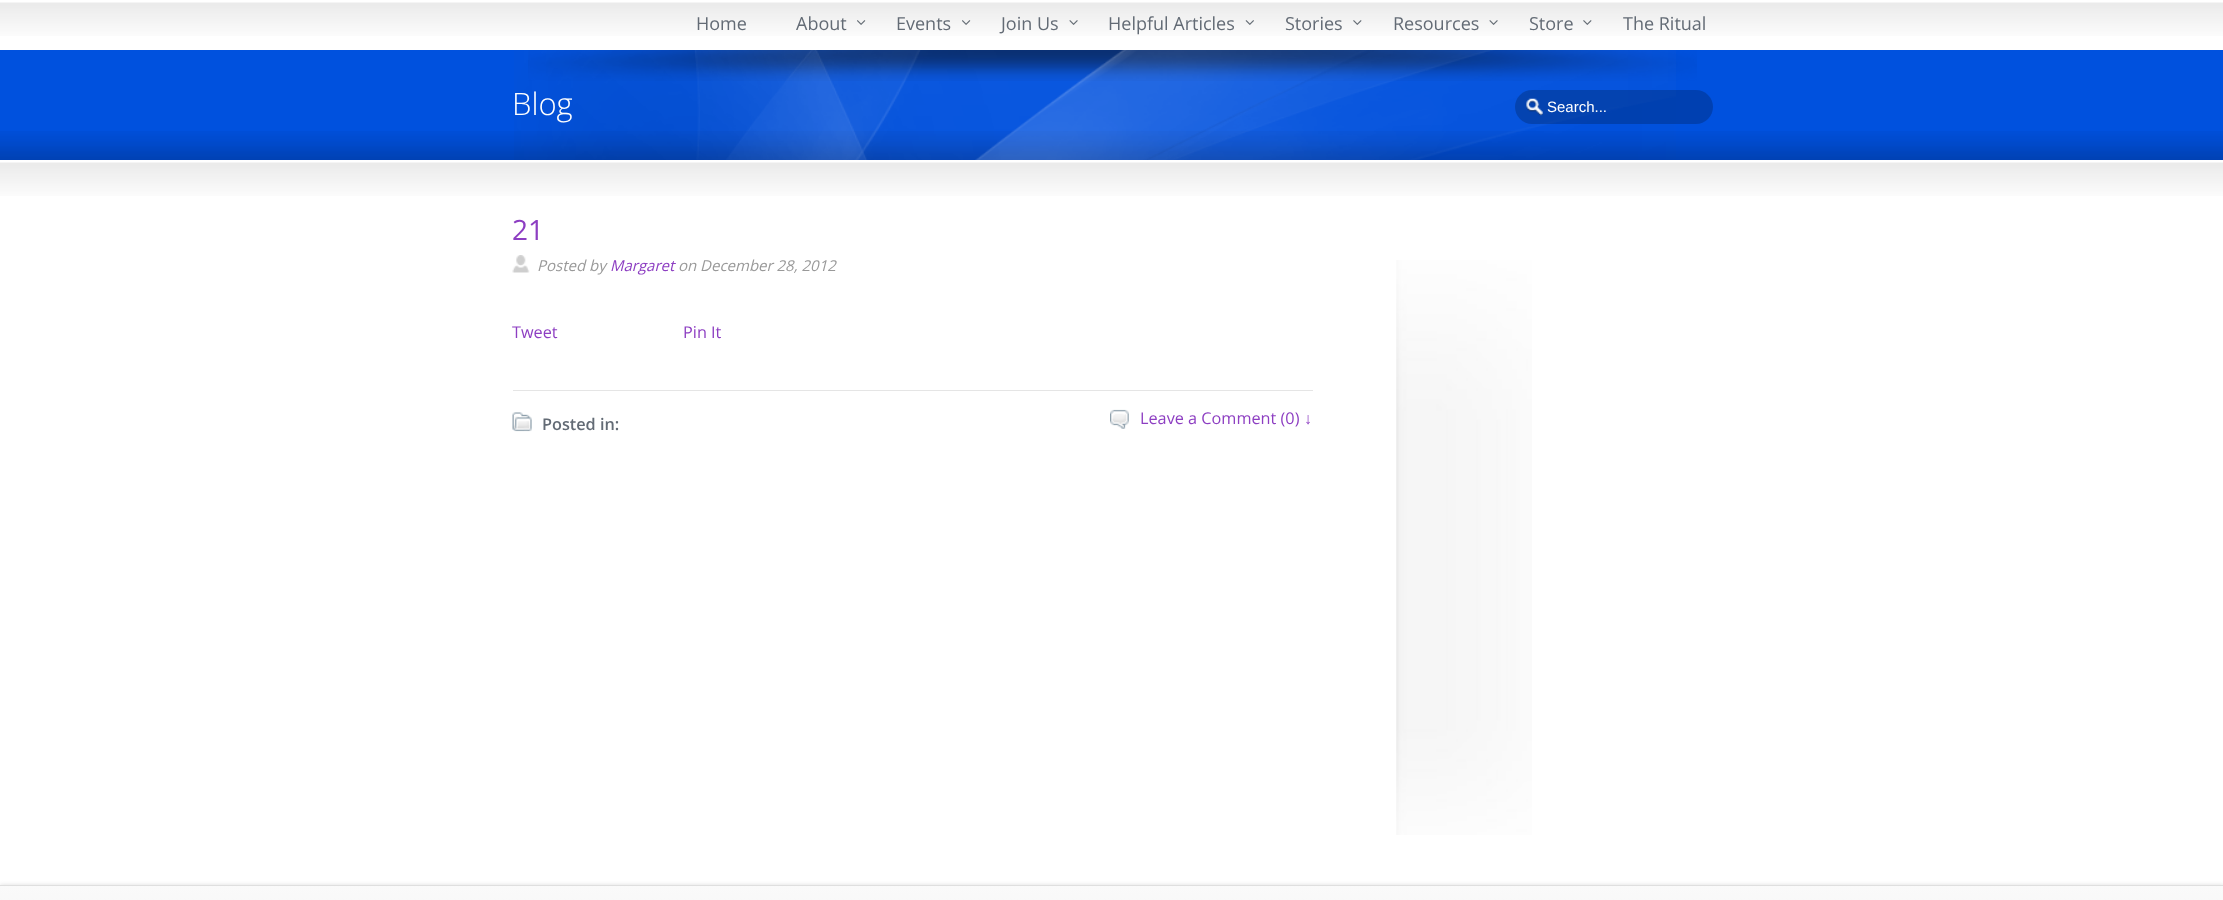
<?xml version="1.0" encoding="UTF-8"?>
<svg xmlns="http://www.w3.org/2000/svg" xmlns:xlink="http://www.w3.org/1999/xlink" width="2223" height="900">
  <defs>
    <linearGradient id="g1" gradientUnits="userSpaceOnUse" x1="1112" y1="886" x2="1112" y2="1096"><stop offset="0" stop-color="#fafafa" /><stop offset="1" stop-color="#e6e6e6" /></linearGradient>
  </defs>
  <rect width="100%" height="100%" fill="#ffffff" />
  <image x="0" y="2" width="2223" height="34" xlink:href="image1.png" />
  <image x="857" y="20" width="9" height="5" xlink:href="image2.png" />
  <image x="962" y="20" width="9" height="5" xlink:href="image2.png" />
  <image x="1069" y="20" width="9" height="5" xlink:href="image3.png" />
  <image x="1245" y="20" width="9" height="5" xlink:href="image4.png" />
  <image x="1353" y="20" width="9" height="5" xlink:href="image5.png" />
  <image x="1489" y="20" width="9" height="5" xlink:href="image3.png" />
  <image x="1583" y="20" width="9" height="5" xlink:href="image5.png" />
  <rect y="50" width="2223" height="110" fill="#0051de" />
  <image x="528" y="50" width="1169" height="31" xlink:href="image7.png" />
  <image x="0" y="131" width="2223" height="29" xlink:href="image9.png" />
  <image x="514" y="50" width="1162" height="110" xlink:href="image6.png" />
  <rect x="1515" y="90" width="198" height="34" rx="17" fill="#000000" fill-opacity="0.2" />
  <image x="1526" y="98" width="17" height="18" xlink:href="image8.png" />
  <image x="0" y="162" width="2223" height="34" xlink:href="image1.png" />
  <image x="512" y="255" width="18" height="18" xlink:href="image10.png" />
  <rect x="513" y="390" width="800" height="1" fill="#e5e5e5" />
  <image x="512" y="412" width="20" height="20" xlink:href="image11.png" />
  <image x="1110" y="409" width="19" height="20" xlink:href="image12.png" />
  <image x="1396" y="260" width="136" height="575" xlink:href="image13.png" />
  <rect y="885" width="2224" height="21" fill="#dddddd" filter="blur(2px)" />
  <rect y="886" width="2223" height="14" fill="url(#g1)" />
  <rect y="885" width="2223" height="1" fill="#dfdfdf" />
  <text x="696" y="30" style="font-family: Open Sans; font-size: 18px; fill: #636b75">Home</text>
  <text x="796" y="30" style="font-family: Open Sans; font-size: 18px; fill: #636b75">About</text>
  <text x="896" y="30" style="font-family: Open Sans; font-size: 18px; fill: #636b75">Events</text>
  <text x="1001" y="30" style="font-family: Open Sans; font-size: 18px; fill: #636b75">Join Us</text>
  <text x="1108" y="30" style="font-family: Open Sans; font-size: 18px; fill: #636b75">Helpful Articles</text>
  <text x="1285" y="30" style="font-family: Open Sans; font-size: 18px; fill: #636b75">Stories</text>
  <text x="1393" y="30" style="font-family: Open Sans; font-size: 18px; fill: #636b75">Resources</text>
  <text x="1529" y="30" style="font-family: Open Sans; font-size: 18px; fill: #636b75">Store</text>
  <text x="1623" y="30" style="font-family: Open Sans; font-size: 18px; fill: #636b75">The Ritual</text>
  <text x="512" y="115" style="font-family: Open Sans; font-size: 31px; font-weight: 300; fill: #ffffff">Blog</text>
  <text x="1547" y="112" style="font-family: Liberation Sans; font-size: 15px; fill: #ffffff">Search...</text>
  <text x="512" y="240" style="font-family: Open Sans; font-size: 28px; fill: #8d3ec2">21</text>
  <text x="537" y="271" style="font-family: Open Sans; font-size: 15px; font-style: italic; fill: #999999">Posted by</text>
  <text x="610" y="271" style="font-family: Open Sans; font-size: 15px; font-style: italic; fill: #8d3ec2">Margaret</text>
  <text x="678" y="271" style="font-family: Open Sans; font-size: 15px; font-style: italic; fill: #999999">on December 28, 2012</text>
  <text x="512" y="338" style="font-family: Open Sans; font-size: 16.25px; fill: #8d3ec2">Tweet</text>
  <text x="683" y="338" style="font-family: Open Sans; font-size: 16.25px; fill: #8d3ec2">Pin It</text>
  <text x="542" y="430" style="font-family: Open Sans; font-size: 16.25px; font-weight: 600; fill: #636b75">Posted in:</text>
  <text x="1140" y="424" style="font-family: Open Sans; font-size: 16.25px; fill: #8d3ec2">Leave a Comment (0)</text>
  <text x="1304" y="424" style="font-family: Liberation Sans; font-size: 16.25px; fill: #8d3ec2">↓</text>
</svg>
